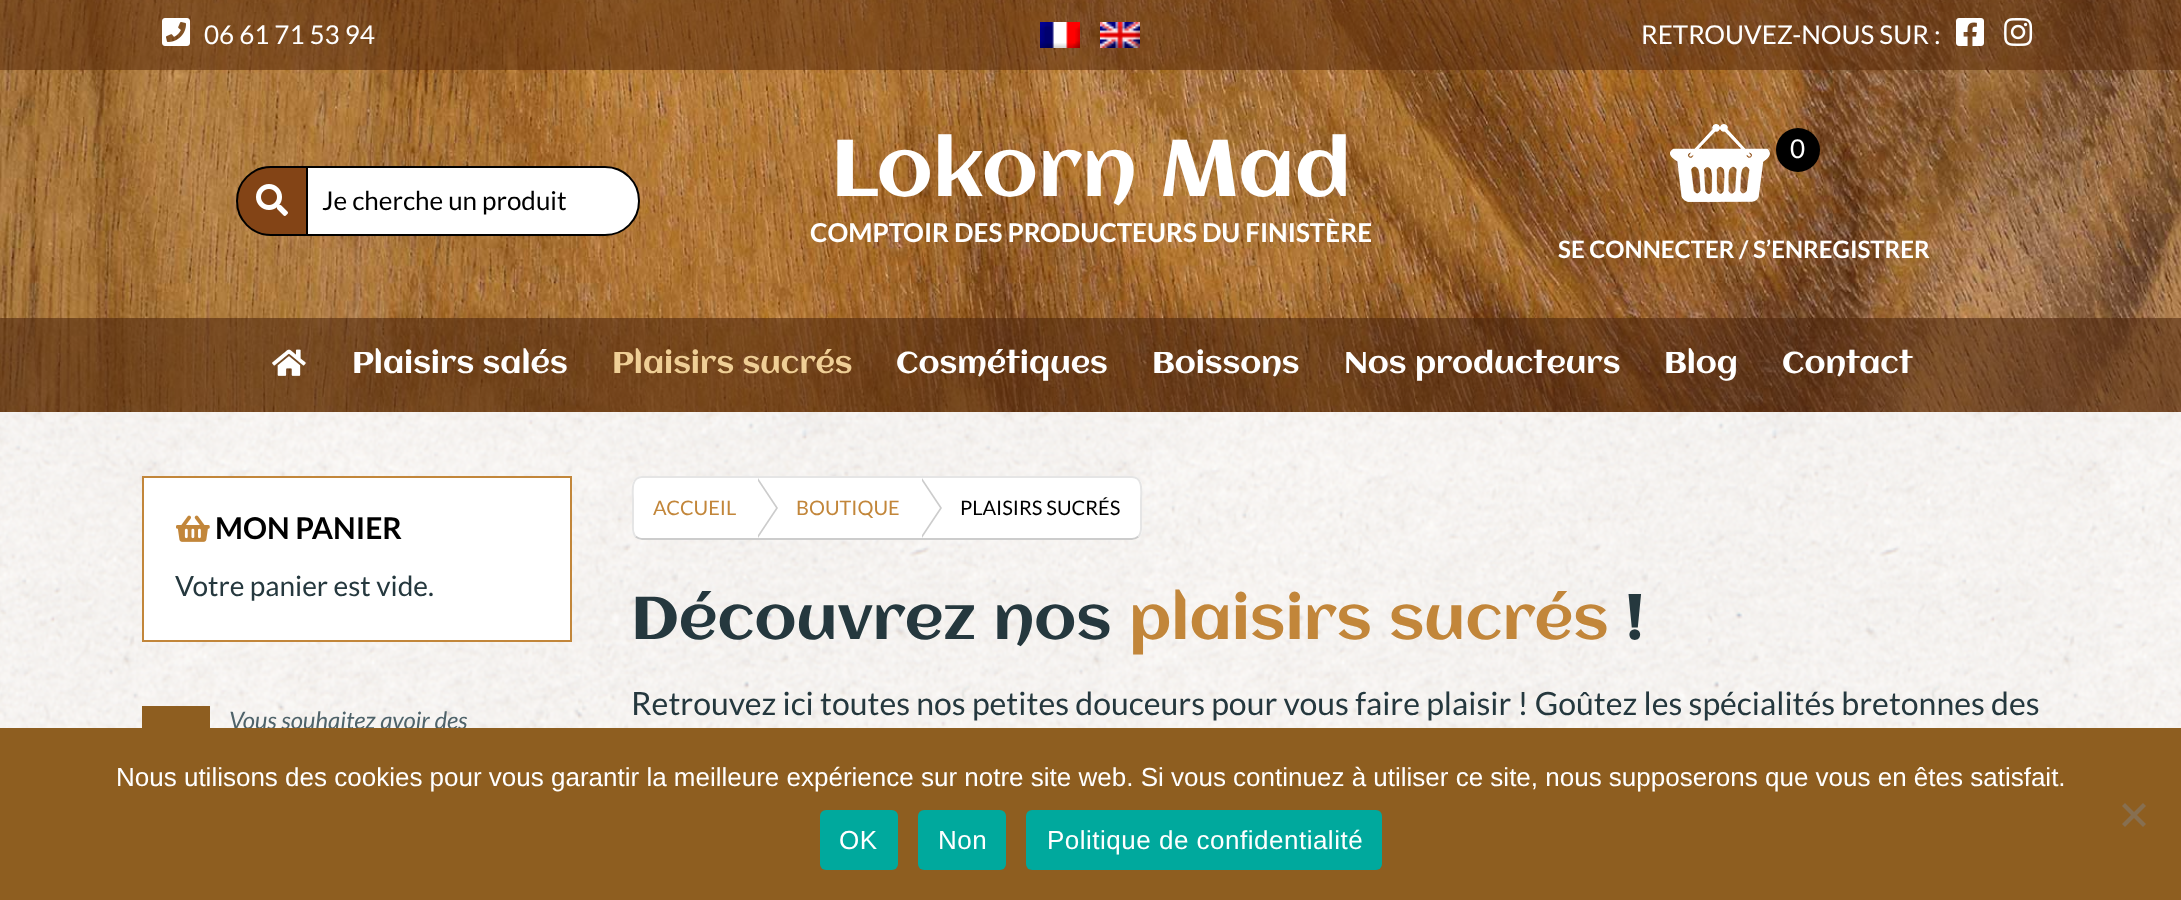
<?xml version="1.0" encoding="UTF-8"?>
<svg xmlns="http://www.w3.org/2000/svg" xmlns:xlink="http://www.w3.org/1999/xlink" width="2181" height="900">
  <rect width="100%" height="100%" fill="#ffffff" />
  <image x="0" y="412" width="2181" height="316" xlink:href="image1.png" />
  <image x="0" y="0" width="2181" height="412" xlink:href="image2.png" />
  <rect width="2181" height="70" fill="#5e2e0e" fill-opacity="0.6" />
  <image x="162" y="18" width="28" height="28" xlink:href="image3.png" />
  <image x="1040" y="22" width="40" height="26" xlink:href="image4.png" />
  <image x="1100" y="22" width="40" height="26" xlink:href="image5.png" />
  <image x="1956" y="18" width="28" height="28" xlink:href="image6.png" />
  <image x="2004" y="18" width="29" height="28" xlink:href="image7.png" />
  <path d="M 305 167 h 300 c 19 0 34 15 34 34 c 0 19 -15 34 -34 34 h -300 z" fill="#ffffff" stroke="#000000" stroke-width="2" />
  <path d="M 271 167 h 36 v 68 h -36 c -19 0 -34 -15 -34 -34 c 0 -19 15 -34 34 -34 z" fill="#834416" stroke="#000000" stroke-width="2" />
  <image x="256" y="184" width="32" height="32" xlink:href="image8.png" />
  <image x="1670" y="124" width="100" height="78" xlink:href="image9.png" />
  <circle cx="1798" cy="150" r="22" fill="#000000" />
  <rect y="318" width="2181" height="94" fill="#50280d" fill-opacity="0.58" />
  <image x="272" y="349" width="34" height="27" xlink:href="image10.png" />
  <rect x="143" y="477" width="428" height="164" fill="#ffffff" stroke="#c2863a" stroke-width="2" />
  <image x="176" y="515" width="34" height="27" xlink:href="image11.png" />
  <rect x="142" y="706" width="68" height="22" fill="#8e5e20" />
  <rect x="632" y="476" width="510" height="64" rx="10" fill="#ffffff" />
  <path d="M 1138.5 536.5 c -2 1.5 -4 2.5 -6.5 2.5 h -490 c -2.5 0 -4.5 -1 -6.5 -2.5" fill="none" stroke="#cccccc" stroke-width="2" />
  <path d="M 635.5 536.5 c -3.5 -4 -2.5 -9 -2.5 -14 v -22 c 0 -7 -3 -23.5 9 -23.5 h 490 c 12 0 9 16.5 9 23.5 v 22 c 0 5 1 10 -2.5 14" fill="none" stroke="#e5e5e5" stroke-width="2" />
  <path d="M 644 478 h 112 v 60 h -112 c -5.5 0 -10 -4.5 -10 -10 v -40 c 0 -5.5 4.5 -10 10 -10 z" fill="#ffffff" />
  <path d="M 758 538 v -60 l 20 30 z" fill="#cccccc" />
  <path d="M 756 538 v -60 l 20 30 z" fill="#ffffff" />
  <path d="M 922 538 v -60 l 20 30 z" fill="#cccccc" />
  <path d="M 920 538 v -60 l 20 30 z" fill="#ffffff" />
  <text x="204" y="44" style="font-family: Lato; font-size: 26px; fill: #ffffff">06 61 71 53 94</text>
  <text x="1641" y="44" style="font-family: Lato; font-size: 26px; fill: #ffffff">RETROUVEZ-NOUS SUR :</text>
  <text x="322" y="210" style="font-family: Lato; font-size: 26px; fill: #000000">Je cherche un produit</text>
  <text x="831" y="196" style="font-family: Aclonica; font-size: 80px; fill: #ffffff">Lokorn Mad</text>
  <text x="810" y="242" style="font-family: Lato; font-size: 26px; font-weight: bold; fill: #ffffff">COMPTOIR DES PRODUCTEURS DU FINISTÈRE</text>
  <text x="1790" y="158" style="font-family: Lato; font-size: 26px; fill: #ffffff">0</text>
  <text x="1558" y="258" style="font-family: Lato; font-size: 24px; font-weight: bold; fill: #ffffff">SE CONNECTER / S’ENREGISTRER</text>
  <text x="352" y="373" style="font-family: Aclonica; font-size: 30px; fill: #ffffff">Plaisirs salés</text>
  <text x="612" y="373" style="font-family: Aclonica; font-size: 30px; fill: #efcf96">Plaisirs sucrés</text>
  <text x="896" y="373" style="font-family: Aclonica; font-size: 30px; fill: #ffffff">Cosmétiques</text>
  <text x="1152" y="373" style="font-family: Aclonica; font-size: 30px; fill: #ffffff">Boissons</text>
  <text x="1344" y="373" style="font-family: Aclonica; font-size: 30px; fill: #ffffff">Nos producteurs</text>
  <text x="1664" y="373" style="font-family: Aclonica; font-size: 30px; fill: #ffffff">Blog</text>
  <text x="1782" y="373" style="font-family: Aclonica; font-size: 30px; fill: #ffffff">Contact</text>
  <text x="215" y="539" style="font-family: Lato; font-size: 30px; font-weight: bold; fill: #000000">MON PANIER</text>
  <text x="175" y="596" style="font-family: Lato; font-size: 28px; fill: #25383e">Votre panier est vide.</text>
  <text x="229" y="729" style="font-family: Lato; font-size: 24px; font-style: italic; fill: #4e6269">Vous souhaitez avoir des</text>
  <text x="653" y="515" style="font-family: Lato; font-size: 20px; fill: #c2863a">ACCUEIL</text>
  <text x="796" y="515" style="font-family: Lato; font-size: 20px; fill: #c2863a">BOUTIQUE</text>
  <text x="960" y="515" style="font-family: Lato; font-size: 20px; fill: #000000">PLAISIRS SUCRÉS</text>
  <text x="631" y="639" style="font-family: Aclonica; font-size: 60px; fill: #25383e">Découvrez nos</text>
  <text x="1129" y="639" style="font-family: Aclonica; font-size: 60px; fill: #c2863a">plaisirs sucrés</text>
  <text x="1625" y="639" style="font-family: Aclonica; font-size: 60px; fill: #25383e">!</text>
  <text x="631" y="715" style="font-family: Lato; font-size: 32px; fill: #25383e">Retrouvez ici toutes nos petites douceurs pour vous faire plaisir ! Goûtez les spécialités bretonnes des</text>
  <rect y="728" width="2181" height="172" fill="#8e5e20" />
  <text x="116" y="786" style="font-family: Liberation Sans; font-size: 26px; fill: #ffffff">Nous utilisons des cookies pour vous garantir la meilleure expérience sur notre site web. Si vous continuez à utiliser ce site, nous supposerons que vous en êtes satisfait.</text>
  <path d="M 2143 803 l 3 3 l -21 21 l -3 -3 z" fill="#876f50" />
  <path d="M 2122 806 l 3 -3 l 21 21 l -3 3 z" fill="#876f50" />
  <rect x="820" y="810" width="78" height="60" rx="6" fill="#00a99d" />
  <text x="839" y="849" style="font-family: Liberation Sans; font-size: 26px; letter-spacing: 0.5px; fill: #ffffff">OK</text>
  <rect x="918" y="810" width="88" height="60" rx="6" fill="#00a99d" />
  <text x="938" y="849" style="font-family: Liberation Sans; font-size: 26px; letter-spacing: 0.5px; fill: #ffffff">Non</text>
  <rect x="1026" y="810" width="356" height="60" rx="6" fill="#00a99d" />
  <text x="1047" y="849" style="font-family: Liberation Sans; font-size: 26px; letter-spacing: 0.5px; fill: #ffffff">Politique de confidentialité</text>
</svg>
